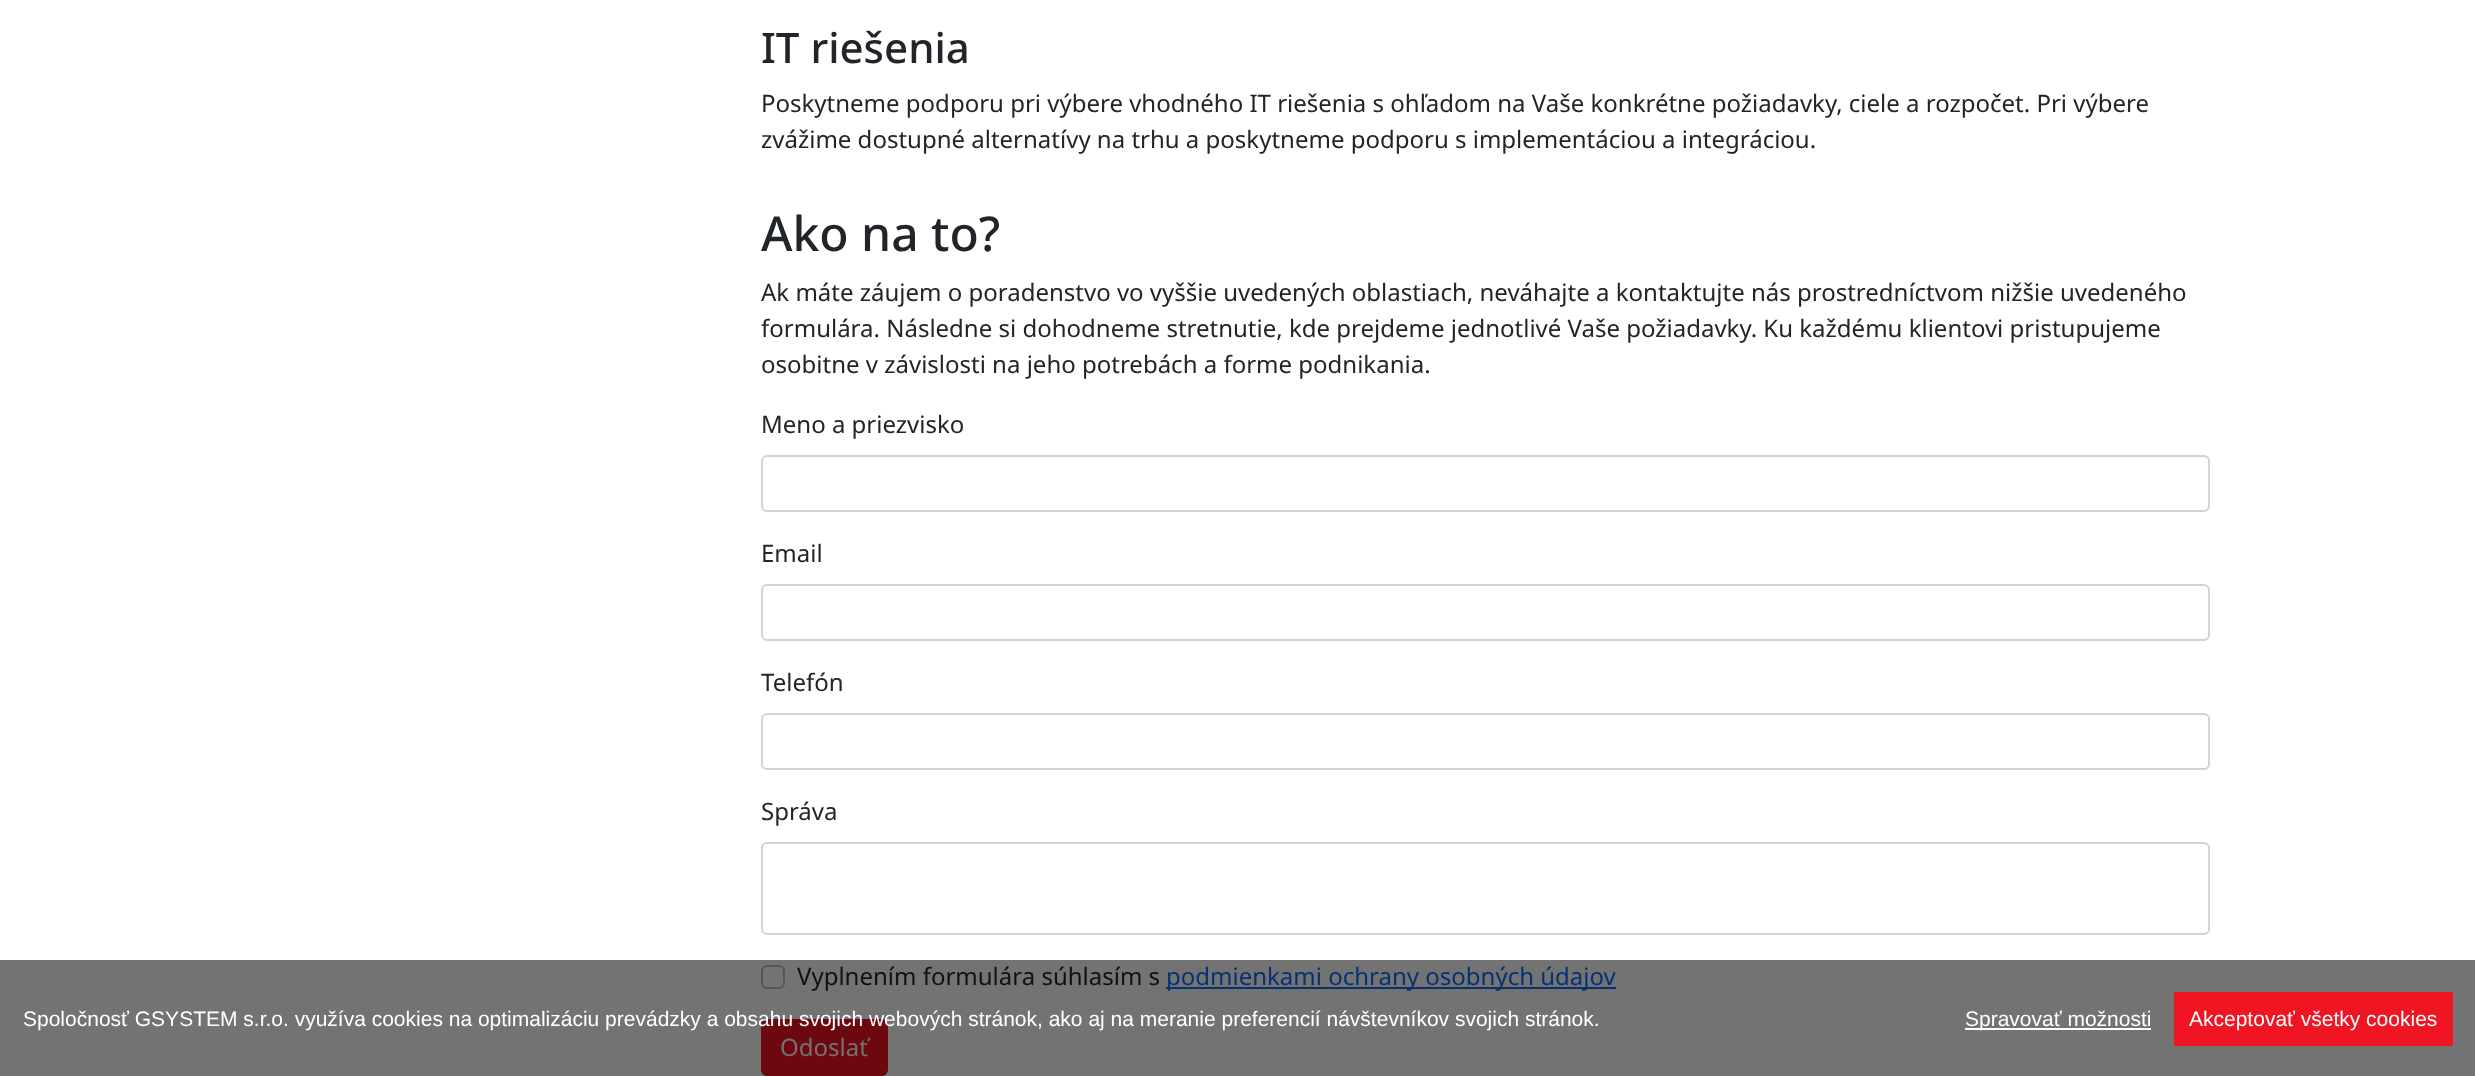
<?xml version="1.0" encoding="UTF-8"?>
<svg xmlns="http://www.w3.org/2000/svg" xmlns:xlink="http://www.w3.org/1999/xlink" width="2475" height="1076">
  <rect width="100%" height="100%" fill="#ffffff" />
  <rect y="960" width="2475" height="116" fill="#737373" />
  <rect x="762" y="456" width="1447" height="55" rx="5" fill="none" stroke="#ced4da" stroke-width="2" />
  <rect x="762" y="585" width="1447" height="55" rx="5" fill="none" stroke="#ced4da" stroke-width="2" />
  <rect x="762" y="714" width="1447" height="55" rx="5" fill="none" stroke="#ced4da" stroke-width="2" />
  <rect x="762" y="843" width="1447" height="91" rx="5" fill="none" stroke="#ced4da" stroke-width="2" />
  <rect x="762" y="966" width="22" height="22" rx="5" fill="none" stroke="#565656" stroke-width="2" />
  <rect x="1166" y="987" width="450" height="2" fill="#063172" />
  <rect x="762" y="1020" width="125" height="55" rx="5" fill="#6c090f" stroke="#6c090f" stroke-width="2" />
  <rect x="1965" y="1028" width="186" height="2" fill="#ffffff" />
  <rect x="2174" y="992" width="279" height="54" fill="#ef1522" />
  <text x="761" y="63" style="font-family: Noto Sans; font-size: 42px; font-weight: 500; fill: #212529">IT riešenia</text>
  <text x="761" y="112" style="font-family: Noto Sans; font-size: 24px; fill: #212529">Poskytneme podporu pri výbere vhodného IT riešenia s ohľadom na Vaše konkrétne požiadavky, ciele a rozpočet. Pri výbere</text>
  <text x="761" y="148" style="font-family: Noto Sans; font-size: 24px; fill: #212529">zvážime dostupné alternatívy na trhu a poskytneme podporu s implementáciou a integráciou.</text>
  <text x="761" y="251" style="font-family: Noto Sans; font-size: 48px; font-weight: 500; fill: #212529">Ako na to?</text>
  <text x="761" y="301" style="font-family: Noto Sans; font-size: 24px; fill: #212529">Ak máte záujem o poradenstvo vo vyššie uvedených oblastiach, neváhajte a kontaktujte nás prostredníctvom nižšie uvedeného</text>
  <text x="761" y="337" style="font-family: Noto Sans; font-size: 24px; fill: #212529">formulára. Následne si dohodneme stretnutie, kde prejdeme jednotlivé Vaše požiadavky. Ku každému klientovi pristupujeme</text>
  <text x="761" y="373" style="font-family: Noto Sans; font-size: 24px; fill: #212529">osobitne v závislosti na jeho potrebách a forme podnikania.</text>
  <text x="761" y="433" style="font-family: Noto Sans; font-size: 24px; fill: #212529">Meno a priezvisko</text>
  <text x="761" y="562" style="font-family: Noto Sans; font-size: 24px; fill: #212529">Email</text>
  <text x="761" y="691" style="font-family: Noto Sans; font-size: 24px; fill: #212529">Telefón</text>
  <text x="761" y="820" style="font-family: Noto Sans; font-size: 24px; fill: #212529">Správa</text>
  <text x="797" y="985" style="font-family: Noto Sans; font-size: 24px; fill: #0f1112">Vyplnením formulára súhlasím s</text>
  <text x="1166" y="985" style="font-family: Noto Sans; font-size: 24px; fill: #063172">podmienkami ochrany osobných údajov</text>
  <text x="780" y="1056" style="font-family: Noto Sans; font-size: 24px; fill: #737373">Odoslať</text>
  <text x="23" y="1026" style="font-family: Liberation Sans; font-size: 21px; fill: #ffffff">Spoločnosť GSYSTEM s.r.o. využíva cookies na optimalizáciu prevádzky a obsahu svojich webových stránok, ako aj na meranie preferencií návštevníkov svojich stránok.</text>
  <text x="1965" y="1026" style="font-family: Liberation Sans; font-size: 21px; fill: #ffffff">Spravovať možnosti</text>
  <text x="2189" y="1026" style="font-family: Liberation Sans; font-size: 21px; fill: #ffffff">Akceptovať všetky cookies</text>
</svg>
